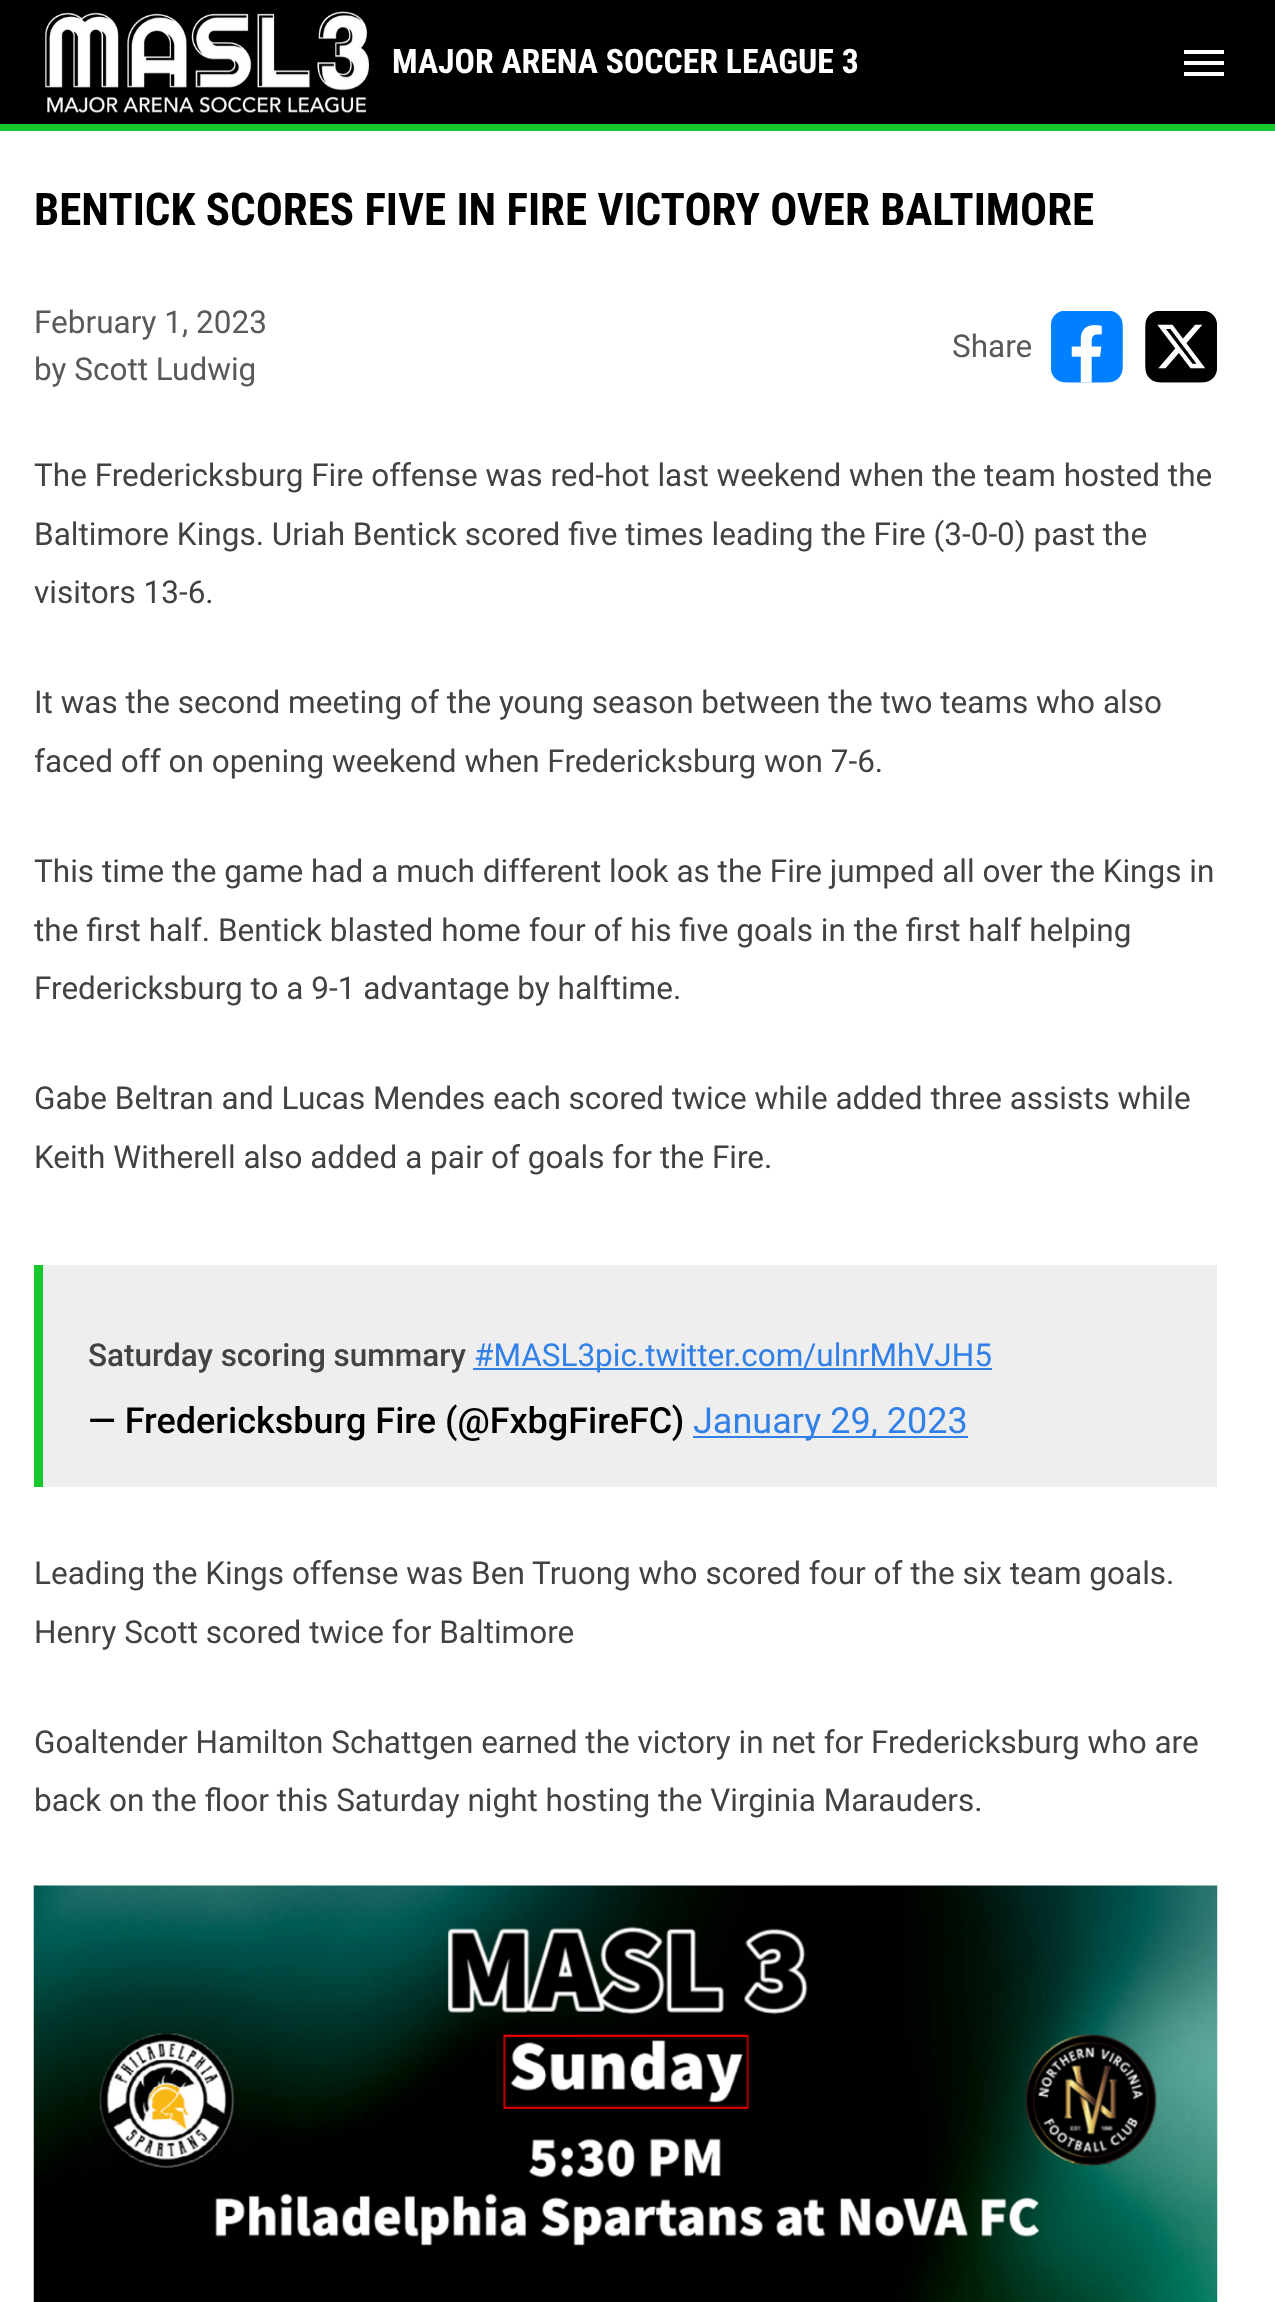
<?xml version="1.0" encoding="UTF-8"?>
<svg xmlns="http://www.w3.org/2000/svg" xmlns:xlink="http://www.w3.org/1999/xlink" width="1275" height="2302">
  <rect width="100%" height="100%" fill="#ffffff" />
  <rect width="1275" height="124" fill="#000000" />
  <image x="45" y="11" width="324" height="102" xlink:href="image1.png" />
  <path d="M 1184 50 h 40 v 4 h -40 z m 0 15 v -4 h 40 v 4 z m 0 11 v -4 h 40 v 4 z" fill="#ffffff" />
  <rect y="124" width="1275" height="7" fill="#16c72e" />
  <image x="1051" y="311" width="72" height="72" xlink:href="image2.png" />
  <image x="1145" y="311" width="72" height="72" xlink:href="image3.png" />
  <rect x="43" y="1265" width="1174" height="222" fill="#eeeeee" />
  <rect x="34" y="1265" width="9" height="222" fill="#16c72e" />
  <rect x="473" y="1368" width="519" height="2" fill="#3080e8" />
  <rect x="693" y="1436" width="275" height="2" fill="#3080e8" />
  <image x="33" y="1885" width="1185" height="417" xlink:href="image4.png" />
  <text x="392" y="73" style="font-family: Roboto Condensed; font-size: 33.75px; font-weight: bold; fill: #ffffff">MAJOR ARENA SOCCER LEAGUE 3</text>
  <text x="34" y="225" style="font-family: Roboto Condensed; font-size: 45px; font-weight: bold; fill: #000000">BENTICK SCORES FIVE IN FIRE VICTORY OVER BALTIMORE</text>
  <text x="34" y="333" style="font-family: Roboto; font-size: 31.5px; fill: #595959">February 1, 2023</text>
  <text x="34" y="380" style="font-family: Roboto; font-size: 31.5px; fill: #595959">by Scott Ludwig</text>
  <text x="952" y="357" style="font-family: Roboto; font-size: 31.5px; fill: #595959">Share</text>
  <text x="34" y="486" style="font-family: Roboto; font-size: 31.5px; fill: #424242">The Fredericksburg Fire offense was red-hot last weekend when the team hosted the</text>
  <text x="34" y="545" style="font-family: Roboto; font-size: 31.5px; fill: #424242">Baltimore Kings. Uriah Bentick scored five times leading the Fire (3-0-0) past the</text>
  <text x="34" y="603" style="font-family: Roboto; font-size: 31.5px; fill: #424242">visitors 13-6.</text>
  <text x="34" y="713" style="font-family: Roboto; font-size: 31.5px; fill: #424242">It was the second meeting of the young season between the two teams who also</text>
  <text x="34" y="772" style="font-family: Roboto; font-size: 31.5px; fill: #424242">faced off on opening weekend when Fredericksburg won 7-6.</text>
  <text x="34" y="882" style="font-family: Roboto; font-size: 31.5px; fill: #424242">This time the game had a much different look as the Fire jumped all over the Kings in</text>
  <text x="34" y="941" style="font-family: Roboto; font-size: 31.5px; fill: #424242">the first half. Bentick blasted home four of his five goals in the first half helping</text>
  <text x="34" y="999" style="font-family: Roboto; font-size: 31.5px; fill: #424242">Fredericksburg to a 9-1 advantage by halftime.</text>
  <text x="34" y="1109" style="font-family: Roboto; font-size: 31.5px; fill: #424242">Gabe Beltran and Lucas Mendes each scored twice while added three assists while</text>
  <text x="34" y="1168" style="font-family: Roboto; font-size: 31.5px; fill: #424242">Keith Witherell also added a pair of goals for the Fire.</text>
  <text x="88" y="1366" style="font-family: Roboto; font-size: 31.5px; font-weight: 500; fill: #424242">Saturday scoring summary</text>
  <text x="474" y="1366" style="font-family: Roboto; font-size: 31.5px; fill: #3080e8">#MASL3pic.twitter.com/ulnrMhVJH5</text>
  <text x="88" y="1433" style="font-family: Roboto; font-size: 36px; font-weight: 500; fill: #000000">— Fredericksburg Fire (@FxbgFireFC)</text>
  <text x="693" y="1433" style="font-family: Roboto; font-size: 36px; fill: #3080e8">January 29, 2023</text>
  <text x="34" y="1584" style="font-family: Roboto; font-size: 31.5px; fill: #424242">Leading the Kings offense was Ben Truong who scored four of the six team goals.</text>
  <text x="34" y="1643" style="font-family: Roboto; font-size: 31.5px; fill: #424242">Henry Scott scored twice for Baltimore</text>
  <text x="34" y="1753" style="font-family: Roboto; font-size: 31.5px; fill: #424242">Goaltender Hamilton Schattgen earned the victory in net for Fredericksburg who are</text>
  <text x="34" y="1811" style="font-family: Roboto; font-size: 31.5px; fill: #424242">back on the floor this Saturday night hosting the Virginia Marauders.</text>
</svg>
